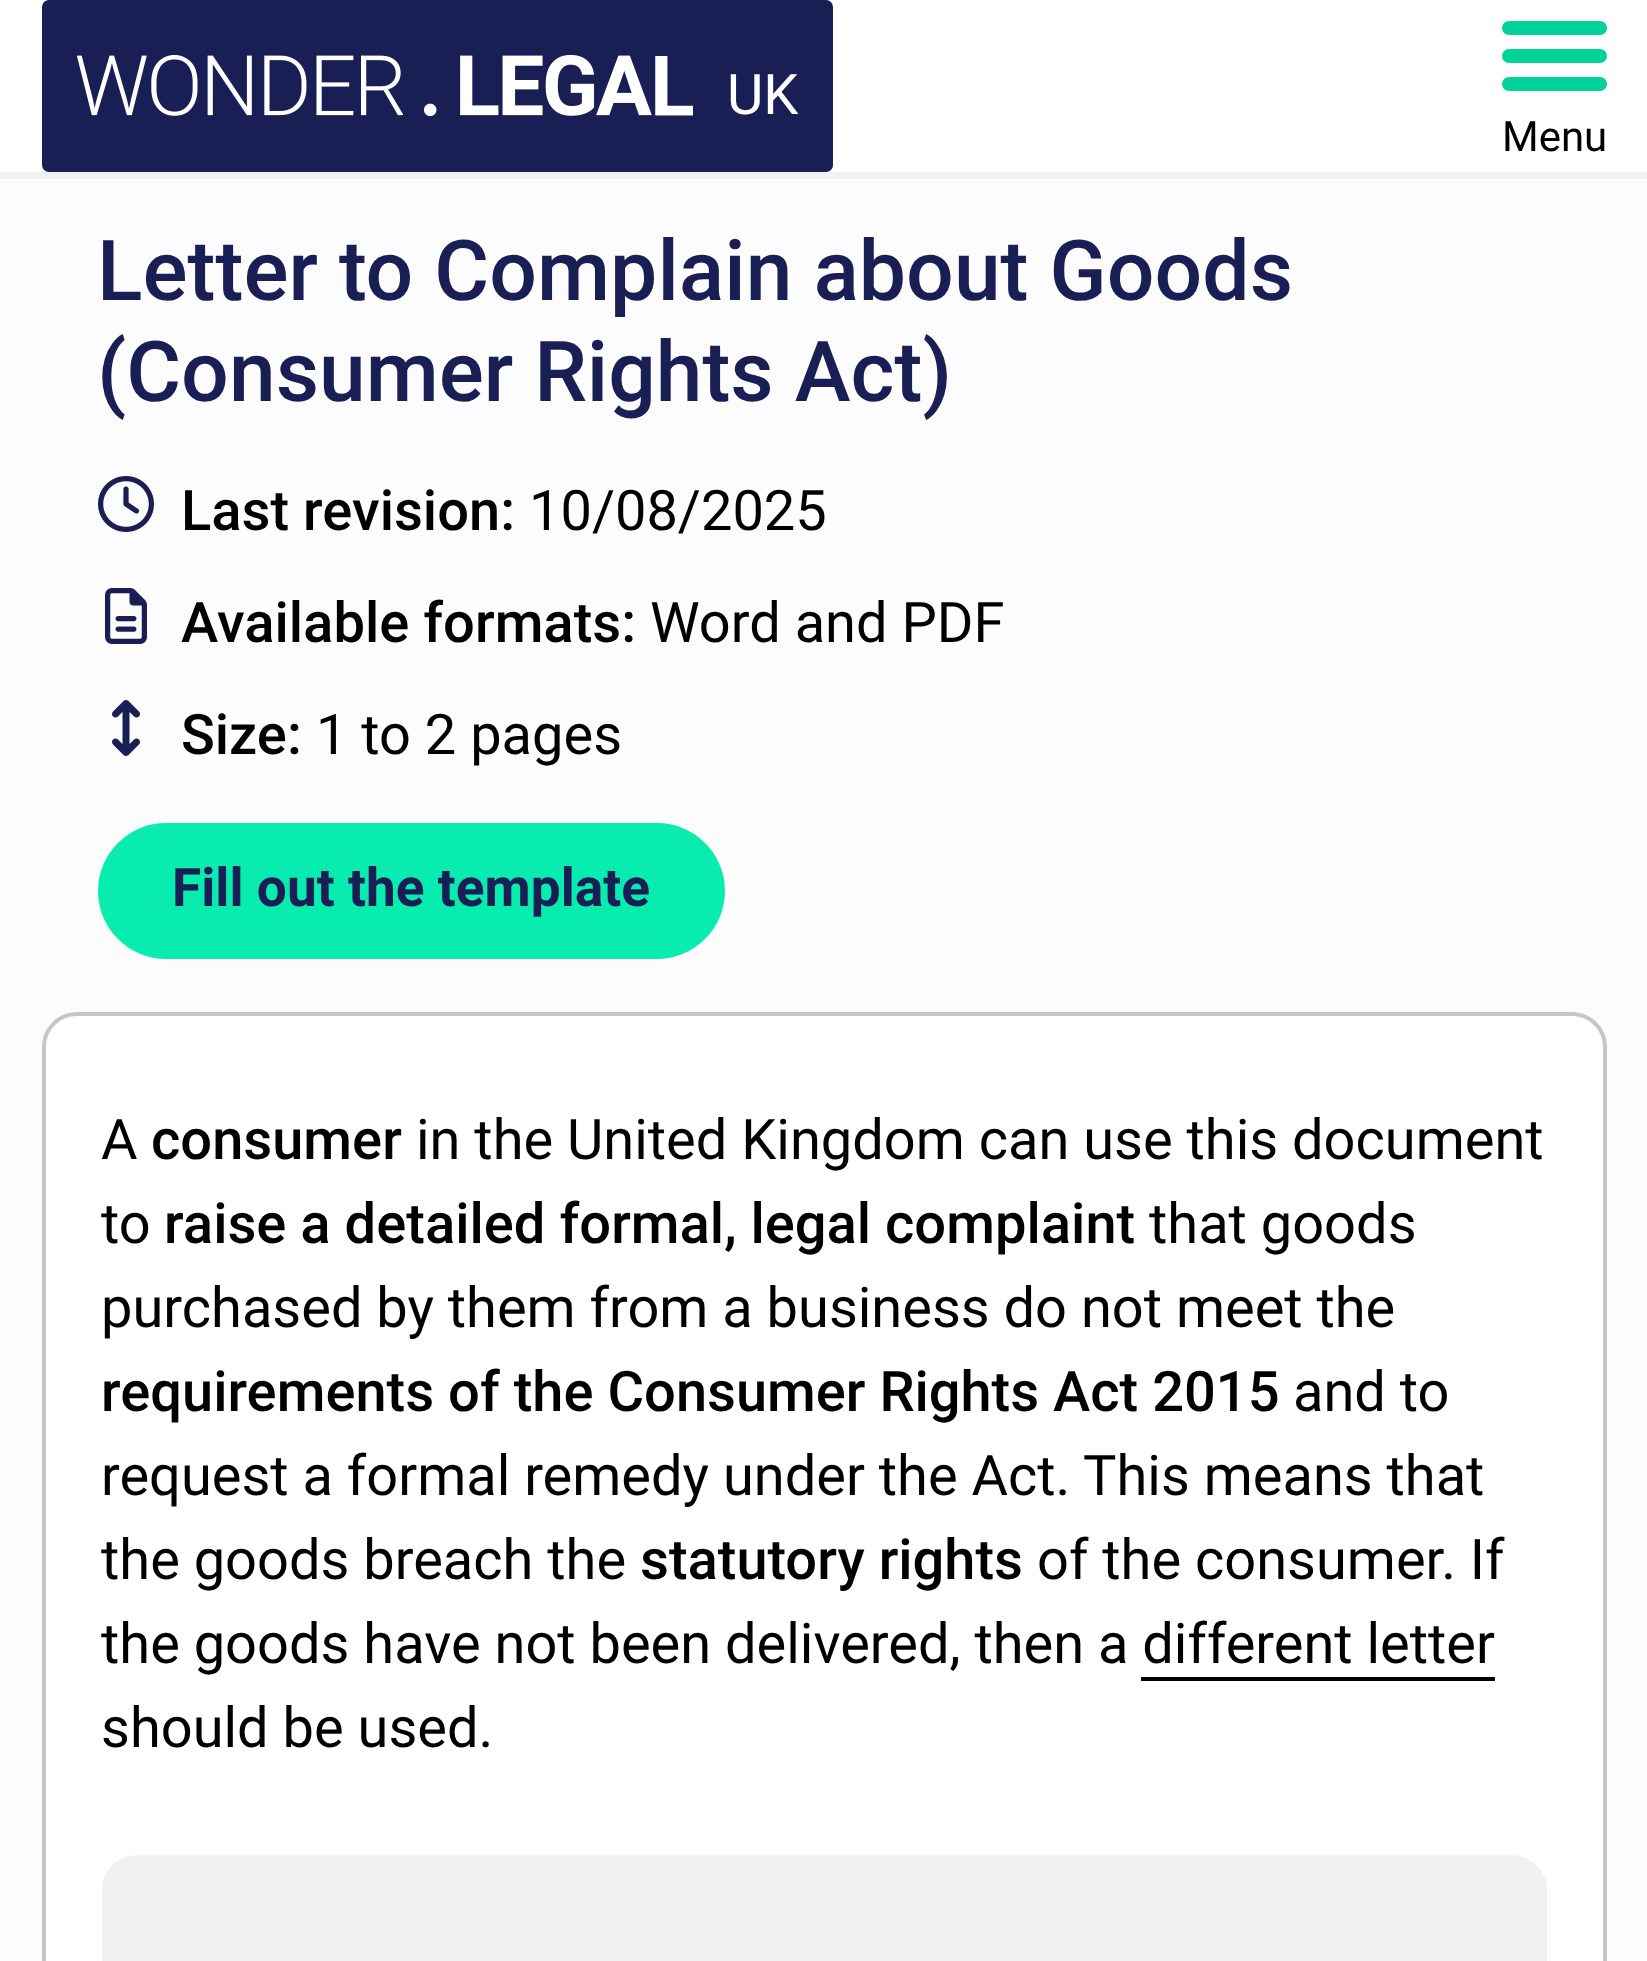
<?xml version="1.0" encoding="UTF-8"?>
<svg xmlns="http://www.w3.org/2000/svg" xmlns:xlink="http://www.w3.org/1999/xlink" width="1647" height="1961">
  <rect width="100%" height="100%" fill="#fcfcfc" />
  <rect width="1647" height="172" fill="#ffffff" />
  <rect y="172" width="1647" height="7" fill="#f1f1f1" />
  <rect x="42" width="791" height="172" rx="7" fill="#191e55" />
  <image x="77" y="54" width="616" height="63" xlink:href="image1.png" />
  <rect x="1502" y="21" width="105" height="14" rx="7" fill="#01d29a" />
  <rect x="1502" y="49" width="105" height="14" rx="7" fill="#01d29a" />
  <rect x="1502" y="77" width="105" height="14" rx="7" fill="#01d29a" />
  <image x="98" y="476" width="56" height="56" xlink:href="image2.png" />
  <image x="105" y="588" width="42" height="56" xlink:href="image3.png" />
  <image x="112" y="700" width="28" height="56" xlink:href="image4.png" />
  <rect x="98" y="823" width="627" height="136" rx="68" fill="#08ecaf" />
  <rect x="44" y="1014" width="1561" height="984" rx="33" fill="#ffffff" stroke="#c6c6c6" stroke-width="4" />
  <rect x="1141" y="1677" width="354" height="4" fill="#000000" />
  <rect x="102" y="1855" width="1445" height="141" rx="35" fill="#f1f1f1" />
  <text x="727" y="114" style="font-family: Roboto; font-size: 56px; fill: #ffffff">UK</text>
  <text x="1502" y="151" style="font-family: Roboto; font-size: 42px; fill: #000000">Menu</text>
  <text x="97" y="300" style="font-family: Roboto; font-size: 84px; font-weight: 500; fill: #191e55">Letter to Complain about Goods</text>
  <text x="97" y="401" style="font-family: Roboto; font-size: 84px; font-weight: 500; fill: #191e55">(Consumer Rights Act)</text>
  <text x="181" y="530" style="font-family: Roboto; font-size: 56px; font-weight: 500; fill: #000000">Last revision:</text>
  <text x="529" y="530" style="font-family: Roboto; font-size: 56px; fill: #000000">10/08/2025</text>
  <text x="181" y="642" style="font-family: Roboto; font-size: 56px; font-weight: 500; fill: #000000">Available formats:</text>
  <text x="650" y="642" style="font-family: Roboto; font-size: 56px; fill: #000000">Word and PDF</text>
  <text x="181" y="754" style="font-family: Roboto; font-size: 56px; font-weight: 500; fill: #000000">Size:</text>
  <text x="316" y="754" style="font-family: Roboto; font-size: 56px; fill: #000000">1 to 2 pages</text>
  <text x="172" y="906" style="font-family: Roboto; font-size: 53.25px; font-weight: bold; fill: #191e55">Fill out the template</text>
  <text x="101" y="1159" style="font-family: Roboto; font-size: 56px; fill: #000000">A</text>
  <text x="151" y="1159" style="font-family: Roboto; font-size: 56px; font-weight: 500; fill: #000000">consumer</text>
  <text x="416" y="1159" style="font-family: Roboto; font-size: 56px; fill: #000000">in the United Kingdom can use this document</text>
  <text x="101" y="1243" style="font-family: Roboto; font-size: 56px; fill: #000000">to</text>
  <text x="164" y="1243" style="font-family: Roboto; font-size: 56px; font-weight: 500; fill: #000000">raise a detailed formal, legal complaint</text>
  <text x="1149" y="1243" style="font-family: Roboto; font-size: 56px; fill: #000000">that goods</text>
  <text x="101" y="1327" style="font-family: Roboto; font-size: 56px; fill: #000000">purchased by them from a business do not meet the</text>
  <text x="101" y="1411" style="font-family: Roboto; font-size: 56px; font-weight: 500; fill: #000000">requirements of the Consumer Rights Act 2015</text>
  <text x="1293" y="1411" style="font-family: Roboto; font-size: 56px; fill: #000000">and to</text>
  <text x="101" y="1495" style="font-family: Roboto; font-size: 56px; fill: #000000">request a formal remedy under the Act. This means that</text>
  <text x="101" y="1579" style="font-family: Roboto; font-size: 56px; fill: #000000">the goods breach the</text>
  <text x="640" y="1579" style="font-family: Roboto; font-size: 56px; font-weight: 500; fill: #000000">statutory rights</text>
  <text x="1037" y="1579" style="font-family: Roboto; font-size: 56px; fill: #000000">of the consumer. If</text>
  <text x="101" y="1663" style="font-family: Roboto; font-size: 56px; fill: #000000">the goods have not been delivered, then a different letter</text>
  <text x="101" y="1747" style="font-family: Roboto; font-size: 56px; fill: #000000">should be used.</text>
</svg>
